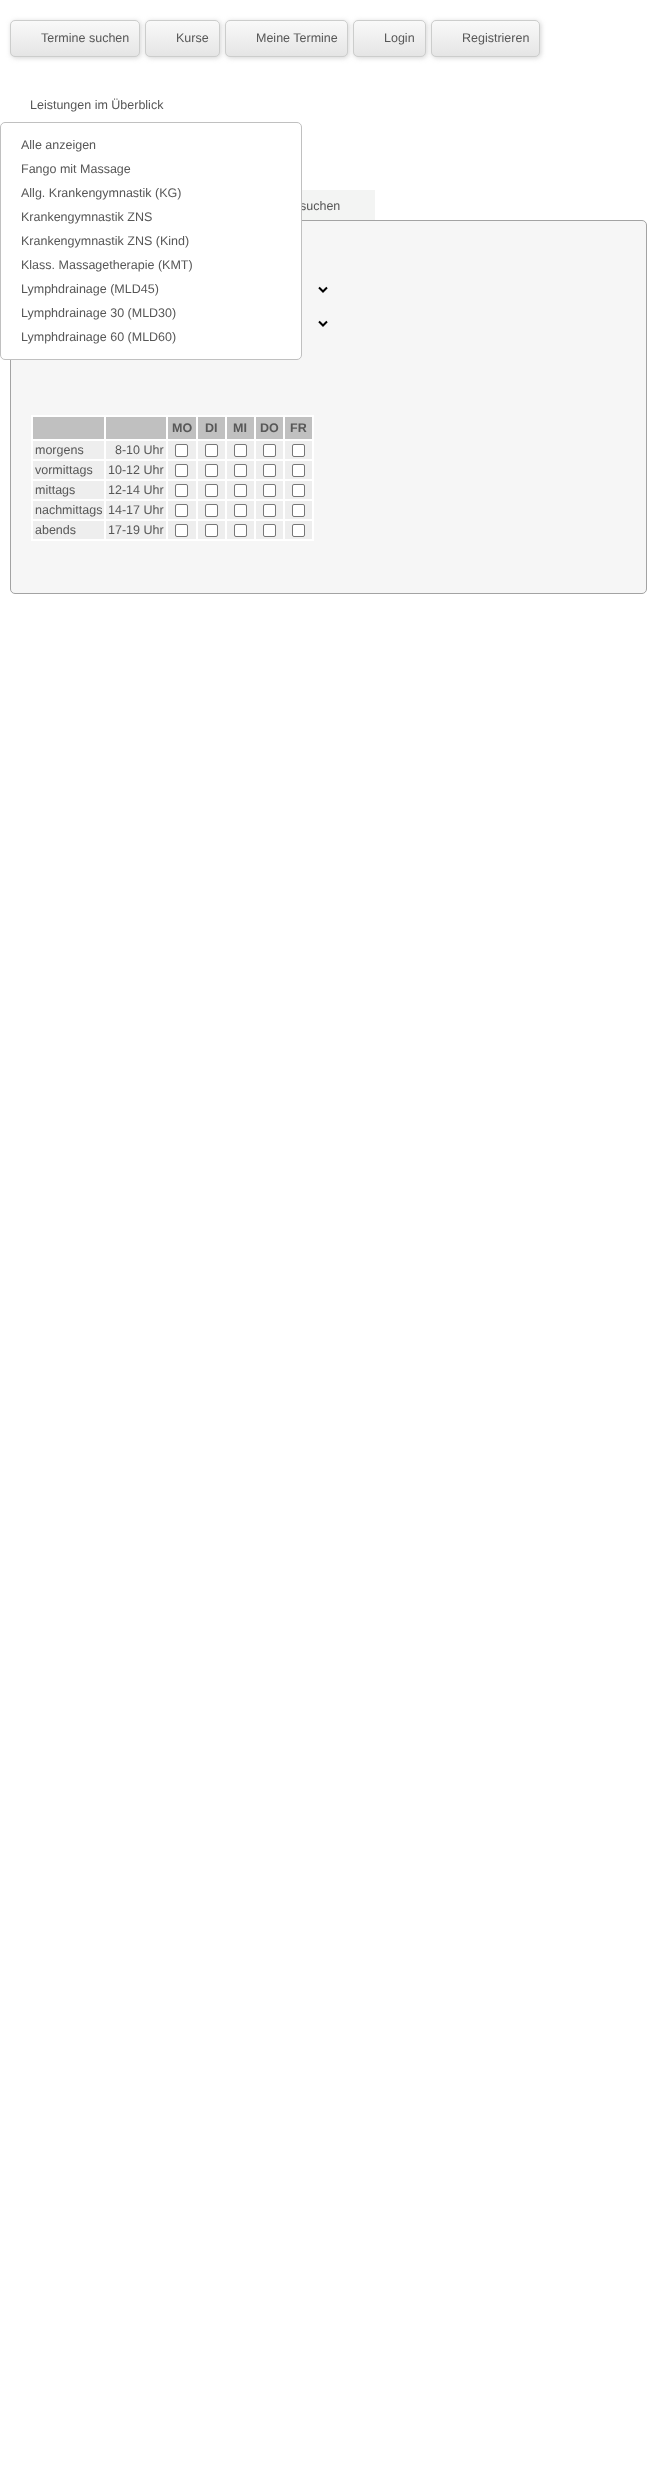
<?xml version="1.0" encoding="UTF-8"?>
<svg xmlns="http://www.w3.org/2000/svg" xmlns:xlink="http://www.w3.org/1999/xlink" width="655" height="2466">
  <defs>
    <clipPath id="clip1"><rect x="10" y="20" width="130" height="37" rx="5" /></clipPath>
    <linearGradient id="g1" gradientUnits="userSpaceOnUse" x1="75" y1="21" x2="75" y2="56"><stop offset="0" stop-color="#f9f9f9" /><stop offset="1" stop-color="#e5e5e5" /></linearGradient>
    <clipPath id="clip2"><rect x="145" y="20" width="75" height="37" rx="5" /></clipPath>
    <linearGradient id="g2" gradientUnits="userSpaceOnUse" x1="183" y1="21" x2="183" y2="56"><stop offset="0" stop-color="#f9f9f9" /><stop offset="1" stop-color="#e5e5e5" /></linearGradient>
    <clipPath id="clip3"><rect x="225" y="20" width="123" height="37" rx="5" /></clipPath>
    <linearGradient id="g3" gradientUnits="userSpaceOnUse" x1="287" y1="21" x2="287" y2="56"><stop offset="0" stop-color="#f9f9f9" /><stop offset="1" stop-color="#e5e5e5" /></linearGradient>
    <clipPath id="clip4"><rect x="353" y="20" width="73" height="37" rx="5" /></clipPath>
    <linearGradient id="g4" gradientUnits="userSpaceOnUse" x1="390" y1="21" x2="390" y2="56"><stop offset="0" stop-color="#f9f9f9" /><stop offset="1" stop-color="#e5e5e5" /></linearGradient>
    <clipPath id="clip5"><rect x="431" y="20" width="109" height="37" rx="5" /></clipPath>
    <linearGradient id="g5" gradientUnits="userSpaceOnUse" x1="486" y1="21" x2="486" y2="56"><stop offset="0" stop-color="#f9f9f9" /><stop offset="1" stop-color="#e5e5e5" /></linearGradient>
  </defs>
  <rect width="100%" height="100%" fill="#ffffff" />
  <rect x="11" y="21" width="130" height="37" rx="5" fill="#d3d3d3" filter="blur(2.5px)" />
  <g clip-path="url(#clip1)">
    <rect x="10" y="21" width="130" height="35" fill="url(#g1)" />
  </g>
  <rect x="10.5" y="20.5" width="129" height="36" rx="4.5" fill="none" stroke="#cccdcc" />
  <rect x="146" y="21" width="75" height="37" rx="5" fill="#d3d3d3" filter="blur(2.5px)" />
  <g clip-path="url(#clip2)">
    <rect x="145" y="21" width="75" height="35" fill="url(#g2)" />
  </g>
  <rect x="145.5" y="20.5" width="74" height="36" rx="4.5" fill="none" stroke="#cccdcc" />
  <rect x="226" y="21" width="123" height="37" rx="5" fill="#d3d3d3" filter="blur(2.5px)" />
  <g clip-path="url(#clip3)">
    <rect x="225" y="21" width="123" height="35" fill="url(#g3)" />
  </g>
  <rect x="225.5" y="20.5" width="122" height="36" rx="4.5" fill="none" stroke="#cccdcc" />
  <rect x="354" y="21" width="73" height="37" rx="5" fill="#d3d3d3" filter="blur(2.5px)" />
  <g clip-path="url(#clip4)">
    <rect x="353" y="21" width="73" height="35" fill="url(#g4)" />
  </g>
  <rect x="353.5" y="20.5" width="72" height="36" rx="4.5" fill="none" stroke="#cccdcc" />
  <rect x="432" y="21" width="109" height="37" rx="5" fill="#d3d3d3" filter="blur(2.5px)" />
  <g clip-path="url(#clip5)">
    <rect x="431" y="21" width="109" height="35" fill="url(#g5)" />
  </g>
  <rect x="431.5" y="20.5" width="108" height="36" rx="4.5" fill="none" stroke="#cccdcc" />
  <rect x="302" y="190" width="73" height="30" fill="#f3f4f3" />
  <rect x="10.5" y="220.5" width="636" height="373" rx="4.5" fill="#f6f6f6" stroke="#a3a3a3" />
  <path d="M 319 287.5 l 4 4 l 4 -4 m -8 34 l 4 4 l 4 -4" fill="none" stroke="#000000" stroke-width="2" />
  <rect x="33" y="417" width="71" height="22" fill="#c0c0c0" />
  <rect x="283" y="415" width="31" height="2" fill="#ffffff" />
  <rect x="283" y="439" width="31" height="2" fill="#ffffff" />
  <rect x="283" y="459" width="31" height="2" fill="#ffffff" />
  <rect x="283" y="479" width="31" height="2" fill="#ffffff" />
  <rect x="283" y="499" width="31" height="2" fill="#ffffff" />
  <rect x="283" y="519" width="31" height="2" fill="#ffffff" />
  <rect x="312" y="519" width="2" height="22" fill="#ffffff" />
  <rect x="283" y="539" width="31" height="2" fill="#ffffff" />
  <rect x="283" y="519" width="2" height="22" fill="#ffffff" />
  <rect x="254" y="519" width="31" height="2" fill="#ffffff" />
  <rect x="283" y="499" width="2" height="22" fill="#ffffff" />
  <rect x="254" y="499" width="31" height="2" fill="#ffffff" />
  <rect x="283" y="479" width="2" height="22" fill="#ffffff" />
  <rect x="254" y="479" width="31" height="2" fill="#ffffff" />
  <rect x="283" y="459" width="2" height="22" fill="#ffffff" />
  <rect x="254" y="459" width="31" height="2" fill="#ffffff" />
  <rect x="283" y="439" width="2" height="22" fill="#ffffff" />
  <rect x="254" y="439" width="31" height="2" fill="#ffffff" />
  <rect x="283" y="415" width="2" height="26" fill="#ffffff" />
  <rect x="254" y="415" width="31" height="2" fill="#ffffff" />
  <rect x="254" y="539" width="31" height="2" fill="#ffffff" />
  <rect x="254" y="519" width="2" height="22" fill="#ffffff" />
  <rect x="225" y="519" width="31" height="2" fill="#ffffff" />
  <rect x="254" y="499" width="2" height="22" fill="#ffffff" />
  <rect x="225" y="499" width="31" height="2" fill="#ffffff" />
  <rect x="254" y="479" width="2" height="22" fill="#ffffff" />
  <rect x="225" y="479" width="31" height="2" fill="#ffffff" />
  <rect x="254" y="459" width="2" height="22" fill="#ffffff" />
  <rect x="225" y="459" width="31" height="2" fill="#ffffff" />
  <rect x="254" y="439" width="2" height="22" fill="#ffffff" />
  <rect x="225" y="439" width="31" height="2" fill="#ffffff" />
  <rect x="254" y="415" width="2" height="26" fill="#ffffff" />
  <rect x="225" y="415" width="31" height="2" fill="#ffffff" />
  <rect x="225" y="539" width="31" height="2" fill="#ffffff" />
  <rect x="225" y="519" width="2" height="22" fill="#ffffff" />
  <rect x="196" y="519" width="31" height="2" fill="#ffffff" />
  <rect x="225" y="499" width="2" height="22" fill="#ffffff" />
  <rect x="196" y="499" width="31" height="2" fill="#ffffff" />
  <rect x="225" y="479" width="2" height="22" fill="#ffffff" />
  <rect x="196" y="479" width="31" height="2" fill="#ffffff" />
  <rect x="225" y="459" width="2" height="22" fill="#ffffff" />
  <rect x="196" y="459" width="31" height="2" fill="#ffffff" />
  <rect x="225" y="439" width="2" height="22" fill="#ffffff" />
  <rect x="196" y="439" width="31" height="2" fill="#ffffff" />
  <rect x="225" y="415" width="2" height="26" fill="#ffffff" />
  <rect x="196" y="415" width="31" height="2" fill="#ffffff" />
  <rect x="196" y="539" width="31" height="2" fill="#ffffff" />
  <rect x="196" y="519" width="2" height="22" fill="#ffffff" />
  <rect x="166" y="519" width="32" height="2" fill="#ffffff" />
  <rect x="196" y="499" width="2" height="22" fill="#ffffff" />
  <rect x="166" y="499" width="32" height="2" fill="#ffffff" />
  <rect x="196" y="479" width="2" height="22" fill="#ffffff" />
  <rect x="166" y="479" width="32" height="2" fill="#ffffff" />
  <rect x="196" y="459" width="2" height="22" fill="#ffffff" />
  <rect x="166" y="459" width="32" height="2" fill="#ffffff" />
  <rect x="196" y="439" width="2" height="22" fill="#ffffff" />
  <rect x="166" y="439" width="32" height="2" fill="#ffffff" />
  <rect x="196" y="415" width="2" height="26" fill="#ffffff" />
  <rect x="166" y="415" width="32" height="2" fill="#ffffff" />
  <rect x="166" y="539" width="32" height="2" fill="#ffffff" />
  <rect x="166" y="519" width="2" height="22" fill="#ffffff" />
  <rect x="104" y="519" width="64" height="2" fill="#ffffff" />
  <rect x="166" y="499" width="2" height="22" fill="#ffffff" />
  <rect x="104" y="499" width="64" height="2" fill="#ffffff" />
  <rect x="166" y="479" width="2" height="22" fill="#ffffff" />
  <rect x="104" y="479" width="64" height="2" fill="#ffffff" />
  <rect x="166" y="459" width="2" height="22" fill="#ffffff" />
  <rect x="104" y="459" width="64" height="2" fill="#ffffff" />
  <rect x="166" y="439" width="2" height="22" fill="#ffffff" />
  <rect x="104" y="439" width="64" height="2" fill="#ffffff" />
  <rect x="166" y="415" width="2" height="26" fill="#ffffff" />
  <rect x="104" y="415" width="64" height="2" fill="#ffffff" />
  <rect x="104" y="539" width="64" height="2" fill="#ffffff" />
  <rect x="104" y="519" width="2" height="22" fill="#ffffff" />
  <rect x="31" y="519" width="75" height="2" fill="#ffffff" />
  <rect x="104" y="499" width="2" height="22" fill="#ffffff" />
  <rect x="31" y="499" width="75" height="2" fill="#ffffff" />
  <rect x="104" y="479" width="2" height="22" fill="#ffffff" />
  <rect x="31" y="479" width="75" height="2" fill="#ffffff" />
  <rect x="104" y="459" width="2" height="22" fill="#ffffff" />
  <rect x="31" y="459" width="75" height="2" fill="#ffffff" />
  <rect x="104" y="439" width="2" height="22" fill="#ffffff" />
  <rect x="31" y="439" width="75" height="2" fill="#ffffff" />
  <rect x="104" y="415" width="2" height="26" fill="#ffffff" />
  <rect x="31" y="415" width="75" height="2" fill="#ffffff" />
  <rect x="31" y="539" width="75" height="2" fill="#ffffff" />
  <rect x="31" y="519" width="2" height="22" fill="#ffffff" />
  <rect x="31" y="499" width="2" height="22" fill="#ffffff" />
  <rect x="31" y="479" width="2" height="22" fill="#ffffff" />
  <rect x="31" y="459" width="2" height="22" fill="#ffffff" />
  <rect x="31" y="439" width="2" height="22" fill="#ffffff" />
  <rect x="31" y="415" width="2" height="26" fill="#ffffff" />
  <rect x="106" y="417" width="60" height="22" fill="#c0c0c0" />
  <rect x="168" y="417" width="28" height="22" fill="#c0c0c0" />
  <rect x="198" y="417" width="27" height="22" fill="#c0c0c0" />
  <rect x="227" y="417" width="27" height="22" fill="#c0c0c0" />
  <rect x="256" y="417" width="27" height="22" fill="#c0c0c0" />
  <rect x="285" y="417" width="27" height="22" fill="#c0c0c0" />
  <rect x="312" y="499" width="2" height="22" fill="#ffffff" />
  <rect x="312" y="479" width="2" height="22" fill="#ffffff" />
  <rect x="312" y="459" width="2" height="22" fill="#ffffff" />
  <rect x="312" y="439" width="2" height="22" fill="#ffffff" />
  <rect x="312" y="415" width="2" height="26" fill="#ffffff" />
  <rect x="33" y="441" width="71" height="18" fill="#eeeeee" />
  <rect x="106" y="441" width="60" height="18" fill="#eeeeee" />
  <rect x="168" y="441" width="28" height="18" fill="#eeeeee" />
  <rect x="175.5" y="444.5" width="12" height="12" rx="1.5" fill="#ffffff" stroke="#767676" />
  <rect x="198" y="441" width="27" height="18" fill="#eeeeee" />
  <rect x="205.5" y="444.5" width="12" height="12" rx="1.5" fill="#ffffff" stroke="#767676" />
  <rect x="227" y="441" width="27" height="18" fill="#eeeeee" />
  <rect x="234.5" y="444.5" width="12" height="12" rx="1.5" fill="#ffffff" stroke="#767676" />
  <rect x="256" y="441" width="27" height="18" fill="#eeeeee" />
  <rect x="263.5" y="444.5" width="12" height="12" rx="1.5" fill="#ffffff" stroke="#767676" />
  <rect x="285" y="441" width="27" height="18" fill="#eeeeee" />
  <rect x="292.5" y="444.5" width="12" height="12" rx="1.5" fill="#ffffff" stroke="#767676" />
  <rect x="33" y="461" width="71" height="18" fill="#eeeeee" />
  <rect x="106" y="461" width="60" height="18" fill="#eeeeee" />
  <rect x="168" y="461" width="28" height="18" fill="#eeeeee" />
  <rect x="175.5" y="464.5" width="12" height="12" rx="1.5" fill="#ffffff" stroke="#767676" />
  <rect x="198" y="461" width="27" height="18" fill="#eeeeee" />
  <rect x="205.5" y="464.5" width="12" height="12" rx="1.5" fill="#ffffff" stroke="#767676" />
  <rect x="227" y="461" width="27" height="18" fill="#eeeeee" />
  <rect x="234.5" y="464.5" width="12" height="12" rx="1.5" fill="#ffffff" stroke="#767676" />
  <rect x="256" y="461" width="27" height="18" fill="#eeeeee" />
  <rect x="263.5" y="464.5" width="12" height="12" rx="1.5" fill="#ffffff" stroke="#767676" />
  <rect x="285" y="461" width="27" height="18" fill="#eeeeee" />
  <rect x="292.5" y="464.5" width="12" height="12" rx="1.5" fill="#ffffff" stroke="#767676" />
  <rect x="33" y="481" width="71" height="18" fill="#eeeeee" />
  <rect x="106" y="481" width="60" height="18" fill="#eeeeee" />
  <rect x="168" y="481" width="28" height="18" fill="#eeeeee" />
  <rect x="175.5" y="484.5" width="12" height="12" rx="1.5" fill="#ffffff" stroke="#767676" />
  <rect x="198" y="481" width="27" height="18" fill="#eeeeee" />
  <rect x="205.5" y="484.5" width="12" height="12" rx="1.5" fill="#ffffff" stroke="#767676" />
  <rect x="227" y="481" width="27" height="18" fill="#eeeeee" />
  <rect x="234.5" y="484.5" width="12" height="12" rx="1.5" fill="#ffffff" stroke="#767676" />
  <rect x="256" y="481" width="27" height="18" fill="#eeeeee" />
  <rect x="263.5" y="484.5" width="12" height="12" rx="1.5" fill="#ffffff" stroke="#767676" />
  <rect x="285" y="481" width="27" height="18" fill="#eeeeee" />
  <rect x="292.5" y="484.5" width="12" height="12" rx="1.5" fill="#ffffff" stroke="#767676" />
  <rect x="33" y="501" width="71" height="18" fill="#eeeeee" />
  <rect x="106" y="501" width="60" height="18" fill="#eeeeee" />
  <rect x="168" y="501" width="28" height="18" fill="#eeeeee" />
  <rect x="175.5" y="504.5" width="12" height="12" rx="1.5" fill="#ffffff" stroke="#767676" />
  <rect x="198" y="501" width="27" height="18" fill="#eeeeee" />
  <rect x="205.5" y="504.5" width="12" height="12" rx="1.5" fill="#ffffff" stroke="#767676" />
  <rect x="227" y="501" width="27" height="18" fill="#eeeeee" />
  <rect x="234.5" y="504.5" width="12" height="12" rx="1.5" fill="#ffffff" stroke="#767676" />
  <rect x="256" y="501" width="27" height="18" fill="#eeeeee" />
  <rect x="263.5" y="504.5" width="12" height="12" rx="1.5" fill="#ffffff" stroke="#767676" />
  <rect x="285" y="501" width="27" height="18" fill="#eeeeee" />
  <rect x="292.5" y="504.5" width="12" height="12" rx="1.5" fill="#ffffff" stroke="#767676" />
  <rect x="33" y="521" width="71" height="18" fill="#eeeeee" />
  <rect x="106" y="521" width="60" height="18" fill="#eeeeee" />
  <rect x="168" y="521" width="28" height="18" fill="#eeeeee" />
  <rect x="175.5" y="524.5" width="12" height="12" rx="1.5" fill="#ffffff" stroke="#767676" />
  <rect x="198" y="521" width="27" height="18" fill="#eeeeee" />
  <rect x="205.5" y="524.5" width="12" height="12" rx="1.5" fill="#ffffff" stroke="#767676" />
  <rect x="227" y="521" width="27" height="18" fill="#eeeeee" />
  <rect x="234.5" y="524.5" width="12" height="12" rx="1.5" fill="#ffffff" stroke="#767676" />
  <rect x="256" y="521" width="27" height="18" fill="#eeeeee" />
  <rect x="263.5" y="524.5" width="12" height="12" rx="1.5" fill="#ffffff" stroke="#767676" />
  <rect x="285" y="521" width="27" height="18" fill="#eeeeee" />
  <rect x="292.5" y="524.5" width="12" height="12" rx="1.5" fill="#ffffff" stroke="#767676" />
  <text x="41" y="42" style="font-family: Liberation Sans; font-size: 12.5px; fill: #575757">Termine suchen</text>
  <text x="176" y="42" style="font-family: Liberation Sans; font-size: 12.5px; fill: #575757">Kurse</text>
  <text x="256" y="42" style="font-family: Liberation Sans; font-size: 12.5px; fill: #575757">Meine Termine</text>
  <text x="384" y="42" style="font-family: Liberation Sans; font-size: 12.5px; fill: #575757">Login</text>
  <text x="462" y="42" style="font-family: Liberation Sans; font-size: 12.5px; fill: #575757">Registrieren</text>
  <text x="30" y="109" style="font-family: Liberation Sans; font-size: 12.5px; fill: #575757">Leistungen im Überblick</text>
  <text x="300" y="210" style="font-family: Liberation Sans; font-size: 12.5px; fill: #575757">suchen</text>
  <rect x="0.5" y="122.5" width="301" height="237" rx="4.5" fill="#ffffff" stroke="#c0c0c0" />
  <text x="21" y="341" style="font-family: Liberation Sans; font-size: 12.5px; fill: #575757">Lymphdrainage 60 (MLD60)</text>
  <text x="21" y="317" style="font-family: Liberation Sans; font-size: 12.5px; fill: #575757">Lymphdrainage 30 (MLD30)</text>
  <text x="21" y="293" style="font-family: Liberation Sans; font-size: 12.5px; fill: #575757">Lymphdrainage (MLD45)</text>
  <text x="21" y="269" style="font-family: Liberation Sans; font-size: 12.5px; fill: #575757">Klass. Massagetherapie (KMT)</text>
  <text x="21" y="245" style="font-family: Liberation Sans; font-size: 12.5px; fill: #575757">Krankengymnastik ZNS (Kind)</text>
  <text x="21" y="221" style="font-family: Liberation Sans; font-size: 12.5px; fill: #575757">Krankengymnastik ZNS</text>
  <text x="21" y="197" style="font-family: Liberation Sans; font-size: 12.5px; fill: #575757">Allg. Krankengymnastik (KG)</text>
  <text x="21" y="173" style="font-family: Liberation Sans; font-size: 12.5px; fill: #575757">Fango mit Massage</text>
  <text x="21" y="149" style="font-family: Liberation Sans; font-size: 12.5px; fill: #575757">Alle anzeigen</text>
  <text x="172" y="432" style="font-family: Liberation Sans; font-size: 12.5px; font-weight: bold; fill: #575757">MO</text>
  <text x="205" y="432" style="font-family: Liberation Sans; font-size: 12.5px; font-weight: bold; fill: #575757">DI</text>
  <text x="233" y="432" style="font-family: Liberation Sans; font-size: 12.5px; font-weight: bold; fill: #575757">MI</text>
  <text x="260" y="432" style="font-family: Liberation Sans; font-size: 12.5px; font-weight: bold; fill: #575757">DO</text>
  <text x="290" y="432" style="font-family: Liberation Sans; font-size: 12.5px; font-weight: bold; fill: #575757">FR</text>
  <text x="35" y="454" style="font-family: Liberation Sans; font-size: 12.5px; fill: #575757">morgens</text>
  <text x="115" y="454" style="font-family: Liberation Sans; font-size: 12.5px; fill: #575757">8-10 Uhr</text>
  <text x="35" y="474" style="font-family: Liberation Sans; font-size: 12.5px; fill: #575757">vormittags</text>
  <text x="108" y="474" style="font-family: Liberation Sans; font-size: 12.5px; fill: #575757">10-12 Uhr</text>
  <text x="35" y="494" style="font-family: Liberation Sans; font-size: 12.5px; fill: #575757">mittags</text>
  <text x="108" y="494" style="font-family: Liberation Sans; font-size: 12.5px; fill: #575757">12-14 Uhr</text>
  <text x="35" y="514" style="font-family: Liberation Sans; font-size: 12.5px; fill: #575757">nachmittags</text>
  <text x="108" y="514" style="font-family: Liberation Sans; font-size: 12.5px; fill: #575757">14-17 Uhr</text>
  <text x="35" y="534" style="font-family: Liberation Sans; font-size: 12.5px; fill: #575757">abends</text>
  <text x="108" y="534" style="font-family: Liberation Sans; font-size: 12.5px; fill: #575757">17-19 Uhr</text>
</svg>
